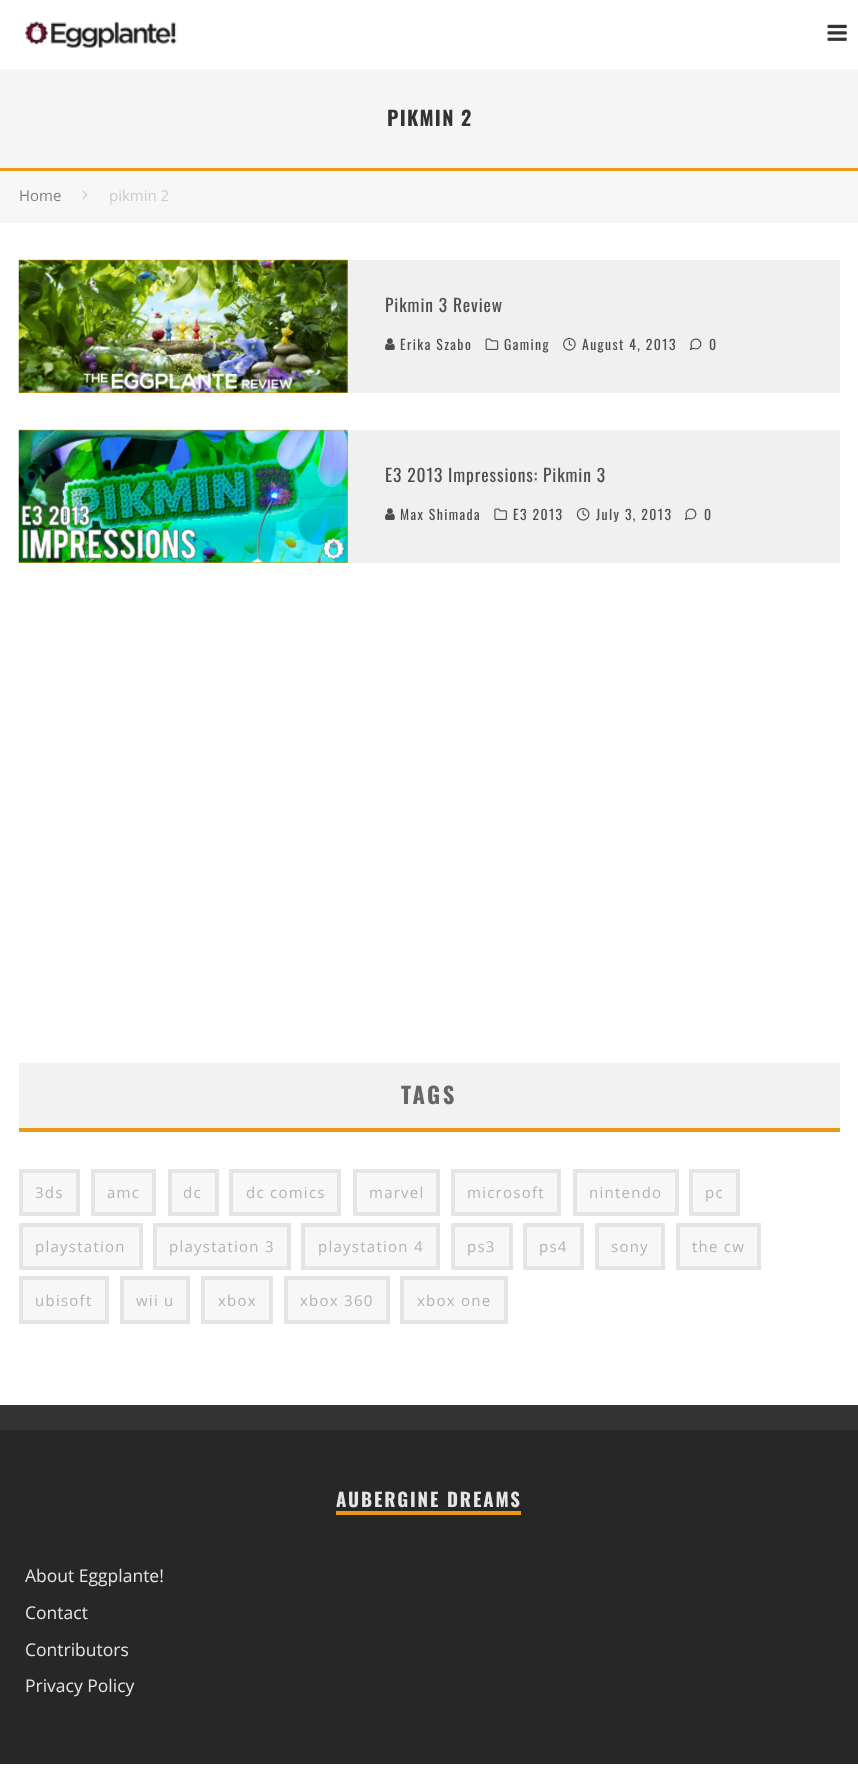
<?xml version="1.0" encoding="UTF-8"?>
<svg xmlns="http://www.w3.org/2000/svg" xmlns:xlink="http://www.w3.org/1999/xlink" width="858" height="1784">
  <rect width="100%" height="100%" fill="#ffffff" />
  <image x="25" y="21" width="152" height="27" xlink:href="image1.png" />
  <image x="827" y="24" width="20" height="17" xlink:href="image2.png" />
  <rect y="69" width="858" height="99" fill="#f5f5f5" />
  <rect y="168" width="858" height="3" fill="#eb9812" />
  <rect y="171" width="858" height="52" fill="#f7f7f7" />
  <rect y="221" width="858" height="1" fill="#f3f3f3" />
  <image x="82" y="190" width="6" height="10" xlink:href="image3.png" />
  <rect x="348" y="260" width="492" height="133" fill="#f0f0f0" />
  <rect x="19" y="260" width="329" height="133" fill="#eb9812" />
  <image x="18" y="259" width="330" height="134" xlink:href="image4.png" />
  <image x="385" y="338" width="10" height="12" xlink:href="image5.png" />
  <image x="485" y="338" width="14" height="12" xlink:href="image6.png" />
  <image x="563" y="338" width="13" height="13" xlink:href="image7.png" />
  <image x="689" y="338" width="13" height="12" xlink:href="image8.png" />
  <rect x="348" y="430" width="492" height="133" fill="#f0f0f0" />
  <rect x="19" y="430" width="329" height="133" fill="#eb9812" />
  <image x="18" y="429" width="330" height="134" xlink:href="image9.png" />
  <image x="385" y="508" width="10" height="12" xlink:href="image5.png" />
  <image x="494" y="508" width="13" height="12" xlink:href="image10.png" />
  <image x="576" y="508" width="14" height="13" xlink:href="image11.png" />
  <image x="684" y="508" width="13" height="12" xlink:href="image8.png" />
  <rect x="19" y="1063" width="821" height="65" fill="#f2f2f2" />
  <rect x="19" y="1128" width="821" height="4" fill="#eb9812" />
  <rect x="21" y="1171" width="57" height="43" fill="#f7f7f7" stroke="#e5e5e5" stroke-width="4" />
  <rect x="93" y="1171" width="61" height="43" fill="#f7f7f7" stroke="#e5e5e5" stroke-width="4" />
  <rect x="170" y="1171" width="47" height="43" fill="#f7f7f7" stroke="#e5e5e5" stroke-width="4" />
  <rect x="231" y="1171" width="108" height="43" fill="#f7f7f7" stroke="#e5e5e5" stroke-width="4" />
  <rect x="355" y="1171" width="83" height="43" fill="#f7f7f7" stroke="#e5e5e5" stroke-width="4" />
  <rect x="453" y="1171" width="106" height="43" fill="#f7f7f7" stroke="#e5e5e5" stroke-width="4" />
  <rect x="575" y="1171" width="102" height="43" fill="#f7f7f7" stroke="#e5e5e5" stroke-width="4" />
  <rect x="691" y="1171" width="47" height="43" fill="#f7f7f7" stroke="#e5e5e5" stroke-width="4" />
  <rect x="21" y="1225" width="120" height="43" fill="#f7f7f7" stroke="#e5e5e5" stroke-width="4" />
  <rect x="155" y="1225" width="134" height="43" fill="#f7f7f7" stroke="#e5e5e5" stroke-width="4" />
  <rect x="303" y="1225" width="135" height="43" fill="#f7f7f7" stroke="#e5e5e5" stroke-width="4" />
  <rect x="453" y="1225" width="58" height="43" fill="#f7f7f7" stroke="#e5e5e5" stroke-width="4" />
  <rect x="525" y="1225" width="57" height="43" fill="#f7f7f7" stroke="#e5e5e5" stroke-width="4" />
  <rect x="597" y="1225" width="66" height="43" fill="#f7f7f7" stroke="#e5e5e5" stroke-width="4" />
  <rect x="678" y="1225" width="81" height="43" fill="#f7f7f7" stroke="#e5e5e5" stroke-width="4" />
  <rect x="21" y="1278" width="86" height="44" fill="#f7f7f7" stroke="#e5e5e5" stroke-width="4" />
  <rect x="122" y="1278" width="66" height="44" fill="#f7f7f7" stroke="#e5e5e5" stroke-width="4" />
  <rect x="203" y="1278" width="68" height="44" fill="#f7f7f7" stroke="#e5e5e5" stroke-width="4" />
  <rect x="286" y="1278" width="102" height="44" fill="#f7f7f7" stroke="#e5e5e5" stroke-width="4" />
  <rect x="402" y="1278" width="104" height="44" fill="#f7f7f7" stroke="#e5e5e5" stroke-width="4" />
  <rect y="1405" width="858" height="25" fill="#333333" />
  <rect y="1430" width="858" height="334" fill="#272727" />
  <rect x="336" y="1511" width="185" height="4" fill="#eb9812" />
  <text x="387" y="126" style="font-family: Oswald; font-size: 20px; font-weight: bold; letter-spacing: 1.25px; fill: #333333">PIKMIN 2</text>
  <text x="19" y="201" style="font-family: Open Sans; font-size: 15px; fill: #808080">Home</text>
  <text x="109" y="201" style="font-family: Open Sans; font-size: 15px; fill: #cccccc">pikmin 2</text>
  <text x="385" y="312" style="font-family: Oswald; font-size: 17.5px; letter-spacing: 0.9px; fill: #4d4d4d">Pikmin 3 Review</text>
  <text x="400" y="350" style="font-family: Oswald; font-size: 13.75px; letter-spacing: 1.4px; fill: #4d4d4d">Erika Szabo</text>
  <text x="504" y="350" style="font-family: Oswald; font-size: 13.75px; letter-spacing: 1.4px; fill: #4d4d4d">Gaming</text>
  <text x="582" y="350" style="font-family: Oswald; font-size: 13.75px; letter-spacing: 1.4px; fill: #4d4d4d">August 4, 2013</text>
  <text x="709" y="350" style="font-family: Oswald; font-size: 13.75px; letter-spacing: 1.4px; fill: #4d4d4d">0</text>
  <text x="385" y="482" style="font-family: Oswald; font-size: 17.5px; letter-spacing: 0.9px; fill: #4d4d4d">E3 2013 Impressions: Pikmin 3</text>
  <text x="400" y="520" style="font-family: Oswald; font-size: 13.75px; letter-spacing: 1.4px; fill: #4d4d4d">Max Shimada</text>
  <text x="513" y="520" style="font-family: Oswald; font-size: 13.75px; letter-spacing: 1.4px; fill: #4d4d4d">E3 2013</text>
  <text x="596" y="520" style="font-family: Oswald; font-size: 13.75px; letter-spacing: 1.4px; fill: #4d4d4d">July 3, 2013</text>
  <text x="704" y="520" style="font-family: Oswald; font-size: 13.75px; letter-spacing: 1.4px; fill: #4d4d4d">0</text>
  <text x="401" y="1104" style="font-family: Oswald; font-size: 22.5px; font-weight: bold; letter-spacing: 2.5px; fill: #666666">TAGS</text>
  <text x="35" y="1198" style="font-family: Open Sans; font-size: 15px; letter-spacing: 1.25px; fill: #b3b3b3">3ds</text>
  <text x="107" y="1198" style="font-family: Open Sans; font-size: 15px; letter-spacing: 1.25px; fill: #b3b3b3">amc</text>
  <text x="183" y="1198" style="font-family: Open Sans; font-size: 15px; letter-spacing: 1.25px; fill: #b3b3b3">dc</text>
  <text x="246" y="1198" style="font-family: Open Sans; font-size: 15px; letter-spacing: 1.25px; fill: #b3b3b3">dc comics</text>
  <text x="369" y="1198" style="font-family: Open Sans; font-size: 15px; letter-spacing: 1.25px; fill: #b3b3b3">marvel</text>
  <text x="467" y="1198" style="font-family: Open Sans; font-size: 15px; letter-spacing: 1.25px; fill: #b3b3b3">microsoft</text>
  <text x="589" y="1198" style="font-family: Open Sans; font-size: 15px; letter-spacing: 1.25px; fill: #b3b3b3">nintendo</text>
  <text x="705" y="1198" style="font-family: Open Sans; font-size: 15px; letter-spacing: 1.25px; fill: #b3b3b3">pc</text>
  <text x="35" y="1252" style="font-family: Open Sans; font-size: 15px; letter-spacing: 1.25px; fill: #b3b3b3">playstation</text>
  <text x="169" y="1252" style="font-family: Open Sans; font-size: 15px; letter-spacing: 1.25px; fill: #b3b3b3">playstation 3</text>
  <text x="318" y="1252" style="font-family: Open Sans; font-size: 15px; letter-spacing: 1.25px; fill: #b3b3b3">playstation 4</text>
  <text x="467" y="1252" style="font-family: Open Sans; font-size: 15px; letter-spacing: 1.25px; fill: #b3b3b3">ps3</text>
  <text x="539" y="1252" style="font-family: Open Sans; font-size: 15px; letter-spacing: 1.25px; fill: #b3b3b3">ps4</text>
  <text x="611" y="1252" style="font-family: Open Sans; font-size: 15px; letter-spacing: 1.25px; fill: #b3b3b3">sony</text>
  <text x="692" y="1252" style="font-family: Open Sans; font-size: 15px; letter-spacing: 1.25px; fill: #b3b3b3">the cw</text>
  <text x="35" y="1306" style="font-family: Open Sans; font-size: 15px; letter-spacing: 1.25px; fill: #b3b3b3">ubisoft</text>
  <text x="136" y="1306" style="font-family: Open Sans; font-size: 15px; letter-spacing: 1.25px; fill: #b3b3b3">wii u</text>
  <text x="218" y="1306" style="font-family: Open Sans; font-size: 15px; letter-spacing: 1.25px; fill: #b3b3b3">xbox</text>
  <text x="300" y="1306" style="font-family: Open Sans; font-size: 15px; letter-spacing: 1.25px; fill: #b3b3b3">xbox 360</text>
  <text x="417" y="1306" style="font-family: Open Sans; font-size: 15px; letter-spacing: 1.25px; fill: #b3b3b3">xbox one</text>
  <text x="336" y="1507" style="font-family: Oswald; font-size: 18.75px; font-weight: bold; letter-spacing: 1.9px; fill: #e5e5e5">AUBERGINE DREAMS</text>
  <text x="25" y="1582" style="font-family: Open Sans; font-size: 17.5px; fill: #e5e5e5">About Eggplante!</text>
  <text x="25" y="1619" style="font-family: Open Sans; font-size: 17.5px; fill: #e5e5e5">Contact</text>
  <text x="25" y="1656" style="font-family: Open Sans; font-size: 17.5px; fill: #e5e5e5">Contributors</text>
  <text x="25" y="1692" style="font-family: Open Sans; font-size: 17.5px; fill: #e5e5e5">Privacy Policy</text>
</svg>
